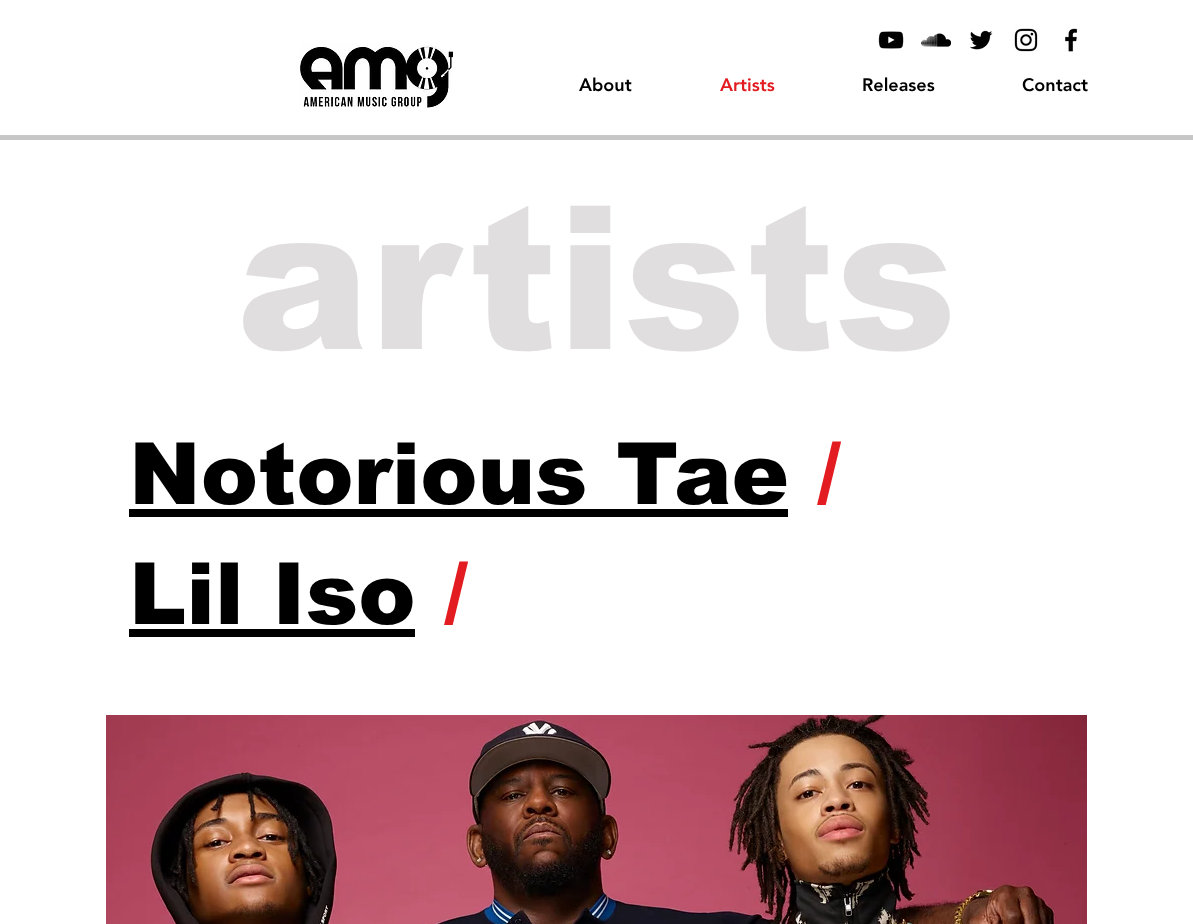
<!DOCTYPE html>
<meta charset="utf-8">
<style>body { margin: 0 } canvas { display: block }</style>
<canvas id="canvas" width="1193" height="924"></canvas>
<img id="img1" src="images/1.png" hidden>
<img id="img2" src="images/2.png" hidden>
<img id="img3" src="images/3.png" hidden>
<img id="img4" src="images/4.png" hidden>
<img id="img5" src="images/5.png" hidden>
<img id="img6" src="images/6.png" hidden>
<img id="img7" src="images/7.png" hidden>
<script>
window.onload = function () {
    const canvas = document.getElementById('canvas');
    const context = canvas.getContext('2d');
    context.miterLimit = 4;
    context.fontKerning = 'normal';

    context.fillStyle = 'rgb(255, 255, 255)';
    context.fillRect(0, 0, 1193, 924);
    context.drawImage(document.getElementById('img1'), 300, 44, 153, 65);
    context.drawImage(document.getElementById('img2'), 878, 31, 26, 18);
    context.drawImage(document.getElementById('img3'), 921, 33, 30, 14);
    context.drawImage(document.getElementById('img4'), 970, 30, 23, 20);
    context.drawImage(document.getElementById('img5'), 1014, 28, 24, 24);
    context.drawImage(document.getElementById('img6'), 1065, 28, 13, 24);
    context.fillStyle = 'rgb(199, 199, 199)';
    context.fillRect(0, 135, 1193, 5);
    context.fillStyle = 'rgb(0, 0, 0)';
    context.fillRect(129, 509, 659, 8);
    context.fillRect(129, 629, 286, 8);
    context.drawImage(document.getElementById('img7'), 106, 715, 981, 209);
    context.font = '900 18px "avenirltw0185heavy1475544"';
    context.fillText('About', 579, 91);
    context.fillStyle = 'rgb(226, 28, 33)';
    context.fillText('Artists', 720, 91);
    context.fillStyle = 'rgb(0, 0, 0)';
    context.fillText('Releases', 862, 91);
    context.fillText('Contact', 1022, 91);
    context.font = '900 200px arial';
    context.fillStyle = 'rgb(224, 222, 222)';
    context.fillText('artists', 236, 349);
    context.font = '900 86px arial';
    context.fillStyle = 'rgb(0, 0, 0)';
    context.fillText('Notorious Tae', 129, 504);
    context.fillStyle = 'rgb(226, 28, 33)';
    context.fillText('/', 817, 504);
    context.fillStyle = 'rgb(0, 0, 0)';
    context.fillText('Lil Iso', 129, 624);
    context.fillStyle = 'rgb(226, 28, 33)';
    context.fillText('/', 444, 624);
};
</script>
